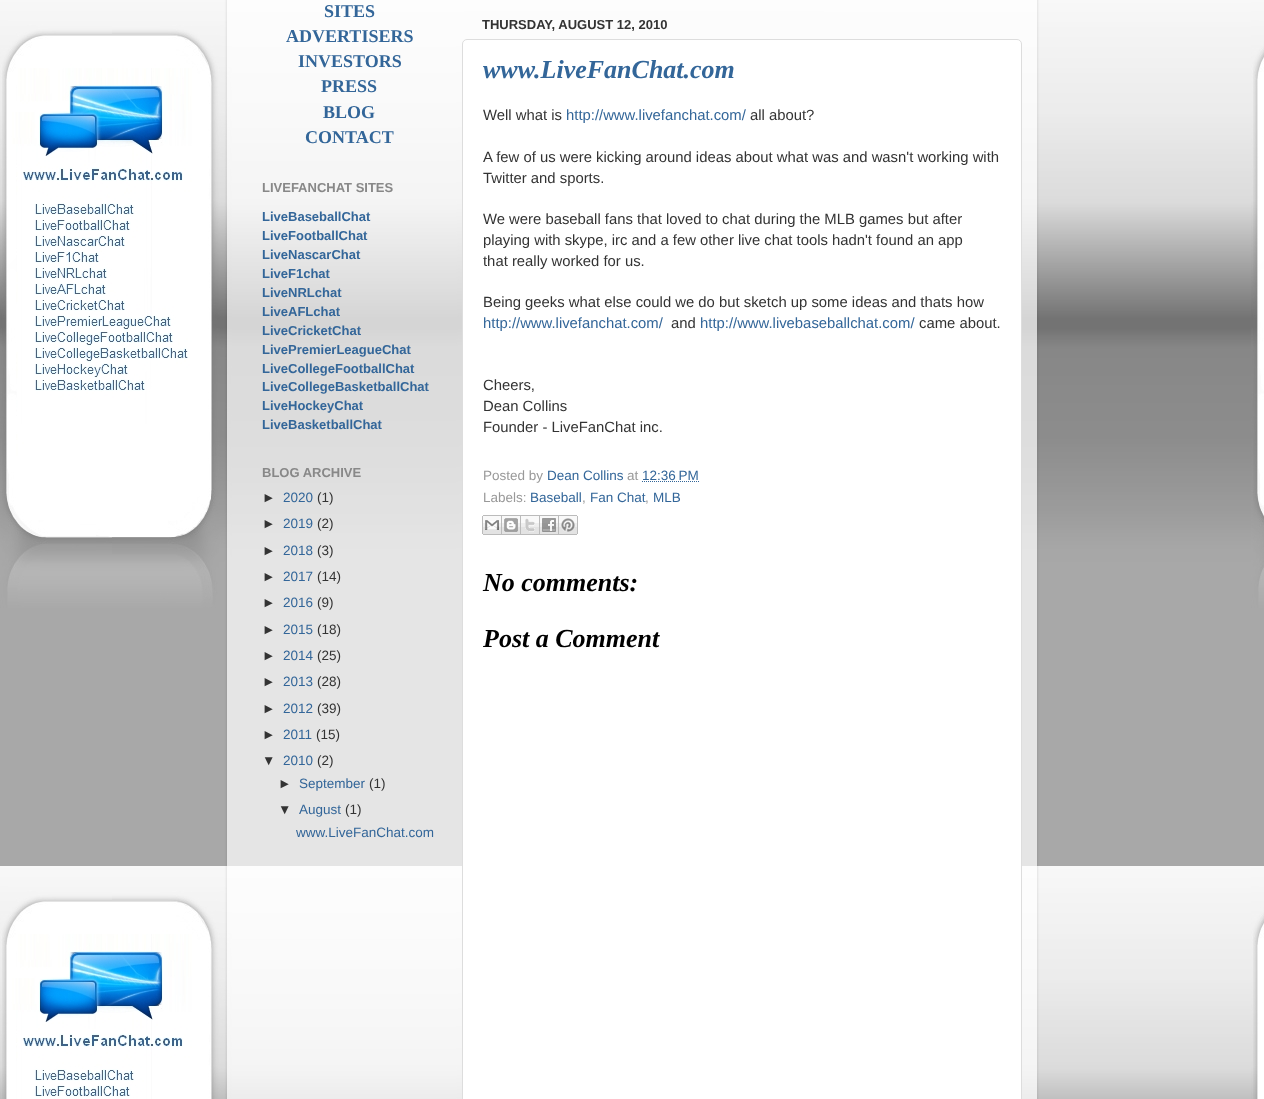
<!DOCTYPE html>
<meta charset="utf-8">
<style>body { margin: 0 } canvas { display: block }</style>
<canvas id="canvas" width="1264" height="1099"></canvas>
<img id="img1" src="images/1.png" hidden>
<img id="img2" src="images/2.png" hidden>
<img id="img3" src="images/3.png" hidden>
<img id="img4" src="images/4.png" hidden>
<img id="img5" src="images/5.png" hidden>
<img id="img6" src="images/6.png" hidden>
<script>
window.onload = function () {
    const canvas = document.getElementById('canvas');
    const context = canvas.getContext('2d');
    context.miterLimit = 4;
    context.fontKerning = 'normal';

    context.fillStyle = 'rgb(255, 255, 255)';
    context.fillRect(0, 0, 1264, 1099);
    context.drawImage(document.getElementById('img1'), 0, 0, 1264, 1099);
    context.save();
    context.beginPath();
    context.moveTo(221, 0);
    context.lineTo(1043, 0);
    context.lineTo(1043, 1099);
    context.lineTo(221, 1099);
    context.closePath();
    context.moveTo(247, -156);
    context.lineTo(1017, -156);
    context.bezierCurveTo(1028, -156, 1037, -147, 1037, -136);
    context.lineTo(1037, 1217);
    context.lineTo(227, 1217);
    context.lineTo(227, -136);
    context.bezierCurveTo(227, -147, 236, -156, 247, -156);
    context.closePath();
    context.clip('evenodd');
    context.fillStyle = 'rgba(0, 0, 0, 0.15)';
    context.filter = 'blur(1.5px)';
    context.beginPath();
    context.roundRect(227, -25, 810, 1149, 20);
    context.fill();
    context.filter = 'none';
    context.restore();
    context.fillStyle = 'rgba(255, 255, 255, 0.7)';
    context.fillRect(227, 0, 810, 1099);
    context.fillStyle = 'rgb(255, 255, 255)';
    context.beginPath();
    context.roundRect(462.5, 39.5, 559, 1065, 4.5);
    context.fill();
    context.strokeStyle = 'rgb(221, 221, 221)';
    context.stroke();
    context.beginPath();
    context.moveTo(642, 481.5);
    context.lineTo(699, 481.5);
    context.strokeStyle = 'rgb(51, 102, 153)';
    context.setLineDash([1, 1]);
    context.stroke();
    context.drawImage(document.getElementById('img2'), 482, 515, 20, 20);
    context.drawImage(document.getElementById('img3'), 502, 515, 19, 20);
    context.drawImage(document.getElementById('img4'), 521, 515, 19, 20);
    context.drawImage(document.getElementById('img5'), 540, 515, 19, 20);
    context.drawImage(document.getElementById('img6'), 559, 515, 19, 20);
    context.font = 'bold 18px Liberation Serif';
    context.fillStyle = 'rgb(51, 102, 153)';
    context.fillText('SITES', 324, 17);
    context.fillText('ADVERTISERS', 286, 42);
    context.fillText('INVESTORS', 298, 67);
    context.fillText('PRESS', 321, 92);
    context.fillText('BLOG', 323, 118);
    context.fillText('CONTACT', 305, 143);
    context.font = 'bold 13px Liberation Sans';
    context.fillStyle = 'rgb(136, 136, 136)';
    context.fillText('LIVEFANCHAT SITES', 262, 192);
    context.fillStyle = 'rgb(51, 102, 153)';
    context.fillText('LiveBaseballChat', 262, 221);
    context.fillText('LiveFootballChat', 262, 240);
    context.fillText('LiveNascarChat', 262, 259);
    context.fillText('LiveF1chat', 262, 278);
    context.fillText('LiveNRLchat', 262, 297);
    context.fillText('LiveAFLchat', 262, 316);
    context.fillText('LiveCricketChat', 262, 335);
    context.fillText('LivePremierLeagueChat', 262, 354);
    context.fillText('LiveCollegeFootballChat', 262, 373);
    context.fillText('LiveCollegeBasketballChat', 262, 391);
    context.fillText('LiveHockeyChat', 262, 410);
    context.fillText('LiveBasketballChat', 262, 429);
    context.fillStyle = 'rgb(136, 136, 136)';
    context.fillText('BLOG ARCHIVE', 262, 477);
    context.font = '13.5px Liberation Sans';
    context.fillStyle = 'rgb(51, 51, 51)';
    context.fillText('►', 262, 502);
    context.fillStyle = 'rgb(51, 102, 153)';
    context.fillText('2020', 283, 502);
    context.fillStyle = 'rgb(51, 51, 51)';
    context.fillText('(1)', 317, 502);
    context.fillText('►', 262, 528);
    context.fillStyle = 'rgb(51, 102, 153)';
    context.fillText('2019', 283, 528);
    context.fillStyle = 'rgb(51, 51, 51)';
    context.fillText('(2)', 317, 528);
    context.fillText('►', 262, 555);
    context.fillStyle = 'rgb(51, 102, 153)';
    context.fillText('2018', 283, 555);
    context.fillStyle = 'rgb(51, 51, 51)';
    context.fillText('(3)', 317, 555);
    context.fillText('►', 262, 581);
    context.fillStyle = 'rgb(51, 102, 153)';
    context.fillText('2017', 283, 581);
    context.fillStyle = 'rgb(51, 51, 51)';
    context.fillText('(14)', 317, 581);
    context.fillText('►', 262, 607);
    context.fillStyle = 'rgb(51, 102, 153)';
    context.fillText('2016', 283, 607);
    context.fillStyle = 'rgb(51, 51, 51)';
    context.fillText('(9)', 317, 607);
    context.fillText('►', 262, 634);
    context.fillStyle = 'rgb(51, 102, 153)';
    context.fillText('2015', 283, 634);
    context.fillStyle = 'rgb(51, 51, 51)';
    context.fillText('(18)', 317, 634);
    context.fillText('►', 262, 660);
    context.fillStyle = 'rgb(51, 102, 153)';
    context.fillText('2014', 283, 660);
    context.fillStyle = 'rgb(51, 51, 51)';
    context.fillText('(25)', 317, 660);
    context.fillText('►', 262, 686);
    context.fillStyle = 'rgb(51, 102, 153)';
    context.fillText('2013', 283, 686);
    context.fillStyle = 'rgb(51, 51, 51)';
    context.fillText('(28)', 317, 686);
    context.fillText('►', 262, 713);
    context.fillStyle = 'rgb(51, 102, 153)';
    context.fillText('2012', 283, 713);
    context.fillStyle = 'rgb(51, 51, 51)';
    context.fillText('(39)', 317, 713);
    context.fillText('►', 262, 739);
    context.fillStyle = 'rgb(51, 102, 153)';
    context.fillText('2011', 283, 739);
    context.fillStyle = 'rgb(51, 51, 51)';
    context.fillText('(15)', 316, 739);
    context.fillText('▼', 262, 765);
    context.fillStyle = 'rgb(51, 102, 153)';
    context.fillText('2010', 283, 765);
    context.fillStyle = 'rgb(51, 51, 51)';
    context.fillText('(2)', 317, 765);
    context.fillText('►', 278, 788);
    context.fillStyle = 'rgb(51, 102, 153)';
    context.fillText('September', 299, 788);
    context.fillStyle = 'rgb(51, 51, 51)';
    context.fillText('(1)', 369, 788);
    context.fillText('▼', 278, 814);
    context.fillStyle = 'rgb(51, 102, 153)';
    context.fillText('August', 299, 814);
    context.fillStyle = 'rgb(51, 51, 51)';
    context.fillText('(1)', 345, 814);
    context.fillStyle = 'rgb(51, 102, 153)';
    context.fillText('www.LiveFanChat.com', 296, 837);
    context.font = 'bold 13px Liberation Sans';
    context.fillStyle = 'rgb(51, 51, 51)';
    context.fillText('THURSDAY, AUGUST 12, 2010', 482, 29);
    context.font = 'italic bold 26px Liberation Serif';
    context.fillStyle = 'rgb(51, 102, 153)';
    context.fillText('www.LiveFanChat.com', 483, 78);
    context.font = '14.85px Liberation Sans';
    context.fillStyle = 'rgb(51, 51, 51)';
    context.fillText('Well what is', 483, 120);
    context.fillStyle = 'rgb(51, 102, 153)';
    context.fillText('http://www.livefanchat.com/', 566, 120);
    context.fillStyle = 'rgb(51, 51, 51)';
    context.fillText('all about?', 750, 120);
    context.fillText('A few of us were kicking around ideas about what was and wasn\'t working with', 483, 162);
    context.fillText('Twitter and sports.', 483, 183);
    context.fillText('We were baseball fans that loved to chat during the MLB games but after', 483, 224);
    context.fillText('playing with skype, irc and a few other live chat tools hadn\'t found an app', 483, 245);
    context.fillText('that really worked for us.', 483, 266);
    context.fillText('Being geeks what else could we do but sketch up some ideas and thats how', 483, 307);
    context.fillStyle = 'rgb(51, 102, 153)';
    context.fillText('http://www.livefanchat.com/', 483, 328);
    context.fillStyle = 'rgb(51, 51, 51)';
    context.fillText('and', 671, 328);
    context.fillStyle = 'rgb(51, 102, 153)';
    context.fillText('http://www.livebaseballchat.com/', 700, 328);
    context.fillStyle = 'rgb(51, 51, 51)';
    context.fillText('came about.', 919, 328);
    context.fillText('Cheers,', 483, 390);
    context.fillText('Dean Collins', 483, 411);
    context.fillText('Founder - LiveFanChat inc.', 483, 432);
    context.font = '13.5px Liberation Sans';
    context.fillStyle = 'rgb(153, 153, 153)';
    context.fillText('Posted by', 483, 480);
    context.fillStyle = 'rgb(51, 102, 153)';
    context.fillText('Dean Collins', 547, 480);
    context.fillStyle = 'rgb(153, 153, 153)';
    context.fillText('at', 627, 480);
    context.fillStyle = 'rgb(51, 102, 153)';
    context.fillText('12:36 PM', 642, 480);
    context.fillStyle = 'rgb(153, 153, 153)';
    context.fillText('Labels:', 483, 502);
    context.fillStyle = 'rgb(51, 102, 153)';
    context.fillText('Baseball', 530, 502);
    context.fillStyle = 'rgb(153, 153, 153)';
    context.fillText(',', 582, 502);
    context.fillStyle = 'rgb(51, 102, 153)';
    context.fillText('Fan Chat', 590, 502);
    context.fillStyle = 'rgb(153, 153, 153)';
    context.fillText(',', 645, 502);
    context.fillStyle = 'rgb(51, 102, 153)';
    context.fillText('MLB', 653, 502);
    context.font = 'italic bold 26px Liberation Serif';
    context.fillStyle = 'rgb(0, 0, 0)';
    context.fillText('No comments:', 483, 591);
    context.fillText('Post a Comment', 483, 647);
};
</script>
